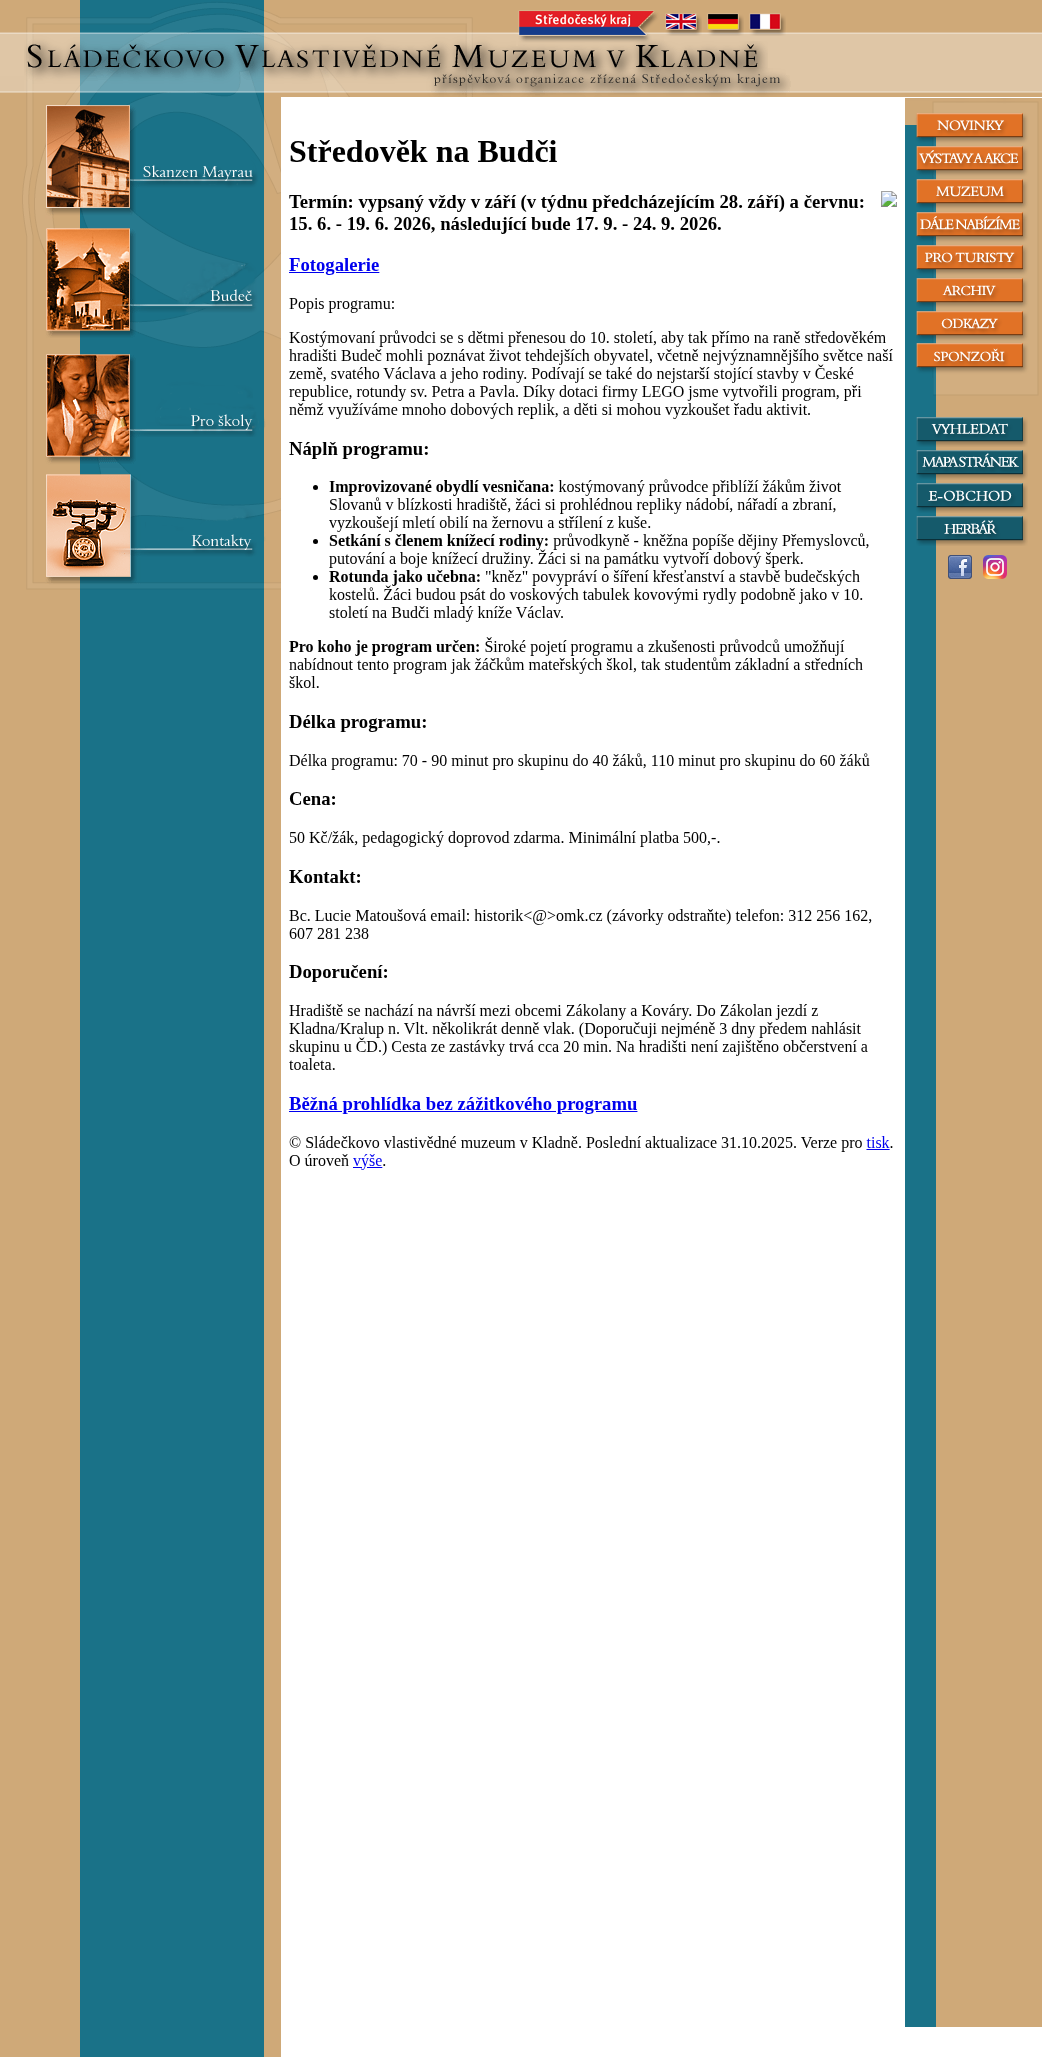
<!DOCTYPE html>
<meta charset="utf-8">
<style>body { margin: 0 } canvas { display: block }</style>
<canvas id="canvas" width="1042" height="2057"></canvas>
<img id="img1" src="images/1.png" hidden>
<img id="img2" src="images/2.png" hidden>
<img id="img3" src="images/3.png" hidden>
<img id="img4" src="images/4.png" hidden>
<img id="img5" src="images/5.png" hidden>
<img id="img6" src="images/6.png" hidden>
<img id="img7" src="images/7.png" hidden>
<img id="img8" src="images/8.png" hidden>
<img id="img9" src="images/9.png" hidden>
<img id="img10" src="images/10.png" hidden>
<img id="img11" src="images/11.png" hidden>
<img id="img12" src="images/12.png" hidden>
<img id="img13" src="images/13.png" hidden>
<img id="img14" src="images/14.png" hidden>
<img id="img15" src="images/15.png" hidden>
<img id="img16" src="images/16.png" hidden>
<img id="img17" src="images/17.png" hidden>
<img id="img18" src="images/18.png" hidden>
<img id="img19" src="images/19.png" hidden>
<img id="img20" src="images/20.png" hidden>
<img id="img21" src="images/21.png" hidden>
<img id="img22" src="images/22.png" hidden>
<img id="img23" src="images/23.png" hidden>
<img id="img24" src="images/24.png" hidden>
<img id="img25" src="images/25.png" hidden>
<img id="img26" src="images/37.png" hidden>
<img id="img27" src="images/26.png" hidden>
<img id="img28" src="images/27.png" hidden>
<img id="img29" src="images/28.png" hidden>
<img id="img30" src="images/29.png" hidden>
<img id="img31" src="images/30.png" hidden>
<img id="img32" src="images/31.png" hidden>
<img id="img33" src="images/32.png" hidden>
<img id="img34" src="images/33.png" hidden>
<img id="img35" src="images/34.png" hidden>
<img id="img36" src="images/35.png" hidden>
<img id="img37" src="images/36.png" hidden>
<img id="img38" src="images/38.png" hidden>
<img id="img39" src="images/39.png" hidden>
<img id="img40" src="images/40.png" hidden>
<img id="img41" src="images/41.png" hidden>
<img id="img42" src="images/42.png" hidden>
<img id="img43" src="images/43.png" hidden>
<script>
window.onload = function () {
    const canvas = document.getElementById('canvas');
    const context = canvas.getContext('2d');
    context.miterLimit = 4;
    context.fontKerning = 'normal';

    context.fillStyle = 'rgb(255, 255, 255)';
    context.fillRect(0, 0, 1042, 2057);
    context.drawImage(document.getElementById('img1'), 0, 0, 1042, 97);
    context.drawImage(document.getElementById('img2'), 80, 0, 184, 8);
    context.drawImage(document.getElementById('img3'), 24, 8, 492, 89);
    context.drawImage(document.getElementById('img4'), 518, 10, 146, 36);
    context.drawImage(document.getElementById('img5'), 665, 13, 37, 23);
    context.drawImage(document.getElementById('img6'), 707, 13, 37, 23);
    context.drawImage(document.getElementById('img7'), 749, 13, 37, 23);
    context.drawImage(document.getElementById('img8'), 516, 46, 148, 22);
    context.drawImage(document.getElementById('img9'), 664, 41, 104, 27);
    context.drawImage(document.getElementById('img10'), 516, 68, 121, 29);
    context.drawImage(document.getElementById('img11'), 637, 68, 149, 29);
    context.drawImage(document.getElementById('img12'), 786, 75, 4, 18);
    context.fillStyle = 'rgb(217, 193, 161)';
    context.fillRect(790, 81, 1, 6);
    context.drawImage(document.getElementById('img13'), 0, 97, 281, 1960);
    context.drawImage(document.getElementById('img14'), 26, 97, 234, 8);
    context.drawImage(document.getElementById('img15'), 22, 105, 23, 485);
    context.drawImage(document.getElementById('img16'), 45, 105, 95, 114);
    context.drawImage(document.getElementById('img17'), 140, 105, 141, 332);
    context.drawImage(document.getElementById('img18'), 45, 219, 95, 9);
    context.drawImage(document.getElementById('img19'), 45, 228, 95, 110);
    context.drawImage(document.getElementById('img20'), 45, 354, 95, 114);
    context.drawImage(document.getElementById('img21'), 99, 468, 32, 6);
    context.drawImage(document.getElementById('img22'), 45, 474, 96, 114);
    context.drawImage(document.getElementById('img23'), 141, 481, 140, 109);
    context.drawImage(document.getElementById('img24'), 45, 588, 96, 2);
    context.drawImage(document.getElementById('img25'), 905, 98, 137, 14);
    context.fillStyle = 'rgb(207, 169, 120)';
    context.fillRect(905, 112, 9, 13);
    context.drawImage(document.getElementById('img26'), 905, 125, 137, 1902);
    context.drawImage(document.getElementById('img27'), 914, 112, 118, 33);
    context.drawImage(document.getElementById('img28'), 1032, 112, 10, 284);
    context.drawImage(document.getElementById('img29'), 916, 145, 116, 33);
    context.drawImage(document.getElementById('img30'), 916, 178, 116, 33);
    context.drawImage(document.getElementById('img31'), 916, 211, 116, 33);
    context.drawImage(document.getElementById('img32'), 916, 244, 116, 33);
    context.drawImage(document.getElementById('img33'), 916, 277, 116, 33);
    context.drawImage(document.getElementById('img34'), 916, 310, 116, 32);
    context.drawImage(document.getElementById('img35'), 916, 342, 116, 36);
    context.drawImage(document.getElementById('img36'), 933, 378, 99, 18);
    context.drawImage(document.getElementById('img37'), 289, 140, 608, 1030);
    context.drawImage(document.getElementById('img38'), 916, 417, 112, 30);
    context.drawImage(document.getElementById('img39'), 916, 450, 112, 30);
    context.drawImage(document.getElementById('img40'), 916, 483, 112, 30);
    context.drawImage(document.getElementById('img41'), 916, 516, 112, 30);
    context.drawImage(document.getElementById('img42'), 948, 555, 24, 24);
    context.drawImage(document.getElementById('img43'), 983, 555, 24, 24);
};
</script>
